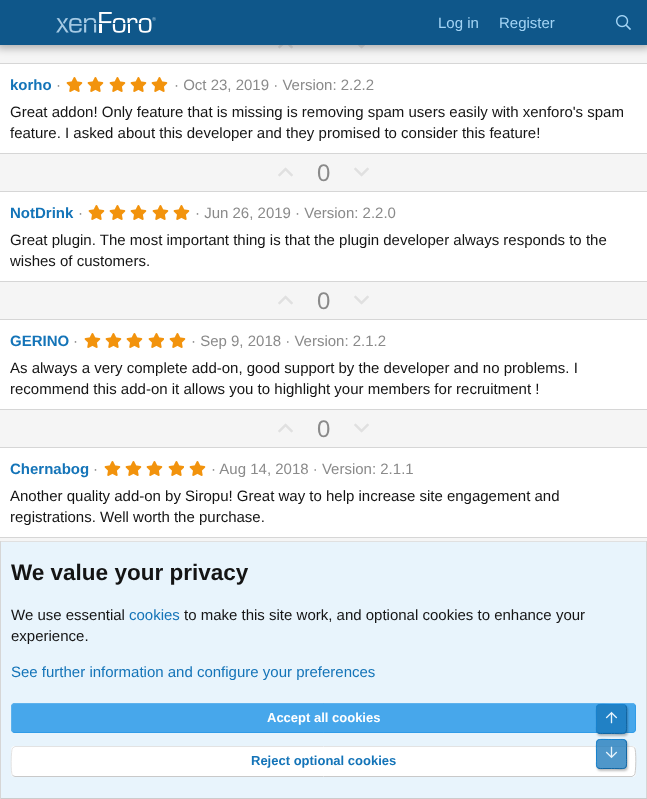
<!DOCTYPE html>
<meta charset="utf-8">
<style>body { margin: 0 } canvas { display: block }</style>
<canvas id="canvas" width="647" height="799"></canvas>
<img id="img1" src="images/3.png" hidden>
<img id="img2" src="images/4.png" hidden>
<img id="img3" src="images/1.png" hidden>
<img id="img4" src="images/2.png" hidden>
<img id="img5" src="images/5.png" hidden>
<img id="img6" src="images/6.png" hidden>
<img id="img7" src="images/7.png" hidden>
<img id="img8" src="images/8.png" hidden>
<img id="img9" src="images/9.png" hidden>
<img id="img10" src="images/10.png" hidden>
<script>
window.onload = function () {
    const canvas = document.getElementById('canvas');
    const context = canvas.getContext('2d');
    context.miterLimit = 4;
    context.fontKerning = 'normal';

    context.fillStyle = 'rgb(255, 255, 255)';
    context.fillRect(0, 0, 647, 799);
    context.fillStyle = 'rgb(245, 245, 245)';
    context.fillRect(0, 45, 647, 18);
    context.drawImage(document.getElementById('img1'), 278, 45, 15, 4);
    context.drawImage(document.getElementById('img2'), 358, 45, 7, 4);
    context.fillStyle = 'rgba(0, 0, 0, 0.3)';
    context.filter = 'blur(4px)';
    context.beginPath();
    context.rect(-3, -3, 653, 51);
    context.fill();
    context.filter = 'none';
    context.fillStyle = 'rgb(15, 87, 138)';
    context.fillRect(0, 0, 647, 45);
    context.drawImage(document.getElementById('img3'), 56, 12, 100, 21);
    context.drawImage(document.getElementById('img4'), 616, 15, 15, 15);
    context.fillStyle = 'rgb(214, 214, 214)';
    context.fillRect(0, 63, 647, 1);
    context.drawImage(document.getElementById('img5'), 66, 77, 17, 15);
    context.drawImage(document.getElementById('img5'), 87, 77, 17, 15);
    context.drawImage(document.getElementById('img5'), 109, 77, 17, 15);
    context.drawImage(document.getElementById('img5'), 130, 77, 17, 15);
    context.drawImage(document.getElementById('img5'), 151, 77, 17, 15);
    context.fillStyle = 'rgb(245, 245, 245)';
    context.fillRect(0, 154, 647, 37);
    context.fillStyle = 'rgb(214, 214, 214)';
    context.fillRect(0, 153, 647, 1);
    context.drawImage(document.getElementById('img6'), 278, 167, 15, 10);
    context.drawImage(document.getElementById('img7'), 354, 167, 15, 10);
    context.fillRect(0, 191, 647, 1);
    context.drawImage(document.getElementById('img5'), 88, 205, 17, 15);
    context.drawImage(document.getElementById('img5'), 109, 205, 17, 15);
    context.drawImage(document.getElementById('img5'), 130, 205, 17, 15);
    context.drawImage(document.getElementById('img5'), 152, 205, 17, 15);
    context.drawImage(document.getElementById('img5'), 173, 205, 17, 15);
    context.fillStyle = 'rgb(245, 245, 245)';
    context.fillRect(0, 282, 647, 37);
    context.fillStyle = 'rgb(214, 214, 214)';
    context.fillRect(0, 281, 647, 1);
    context.drawImage(document.getElementById('img6'), 278, 295, 15, 10);
    context.drawImage(document.getElementById('img7'), 354, 295, 15, 10);
    context.fillRect(0, 319, 647, 1);
    context.drawImage(document.getElementById('img5'), 84, 333, 17, 15);
    context.drawImage(document.getElementById('img5'), 105, 333, 17, 15);
    context.drawImage(document.getElementById('img5'), 126, 333, 17, 15);
    context.drawImage(document.getElementById('img8'), 148, 333, 16, 15);
    context.drawImage(document.getElementById('img5'), 169, 333, 17, 15);
    context.fillStyle = 'rgb(245, 245, 245)';
    context.fillRect(0, 410, 647, 37);
    context.fillStyle = 'rgb(214, 214, 214)';
    context.fillRect(0, 409, 647, 1);
    context.drawImage(document.getElementById('img6'), 278, 423, 15, 10);
    context.drawImage(document.getElementById('img7'), 354, 423, 15, 10);
    context.fillRect(0, 447, 647, 1);
    context.drawImage(document.getElementById('img5'), 104, 461, 17, 15);
    context.drawImage(document.getElementById('img5'), 125, 461, 17, 15);
    context.drawImage(document.getElementById('img5'), 146, 461, 17, 15);
    context.drawImage(document.getElementById('img8'), 168, 461, 16, 15);
    context.drawImage(document.getElementById('img5'), 189, 461, 17, 15);
    context.fillStyle = 'rgb(245, 245, 245)';
    context.fillRect(0, 538, 647, 3);
    context.fillStyle = 'rgb(214, 214, 214)';
    context.fillRect(0, 537, 647, 1);
    context.fillStyle = 'rgb(232, 244, 252)';
    context.fillRect(1, 542, 645, 256);
    context.fillStyle = 'rgb(224, 224, 224)';
    context.fillRect(0, 541, 647, 1);
    context.fillStyle = 'rgb(214, 214, 214)';
    context.fillRect(646, 541, 1, 258);
    context.fillStyle = 'rgb(204, 204, 204)';
    context.fillRect(0, 798, 647, 1);
    context.fillStyle = 'rgb(214, 214, 214)';
    context.fillRect(0, 541, 1, 258);
    context.fillStyle = 'rgb(71, 167, 235)';
    context.beginPath();
    context.roundRect(11, 703, 625, 30, 4);
    context.fill();
    context.beginPath();
    context.moveTo(634.5, 704.5);
    context.bezierCurveTo(635, 705, 635.5, 706, 635.5, 707);
    context.lineTo(635.5, 729);
    context.bezierCurveTo(635.5, 730, 635, 731, 634.5, 731.5);
    context.bezierCurveTo(634, 732, 633, 732.5, 632, 732.5);
    context.lineTo(15, 732.5);
    context.bezierCurveTo(14, 732.5, 13, 732, 12.5, 731.5);
    context.strokeStyle = 'rgb(48, 156, 232)';
    context.stroke();
    context.beginPath();
    context.moveTo(12.5, 731.5);
    context.bezierCurveTo(12, 731, 11.5, 730, 11.5, 729);
    context.lineTo(11.5, 707);
    context.bezierCurveTo(11.5, 706, 12, 705, 12.5, 704.5);
    context.bezierCurveTo(13, 704, 14, 703.5, 15, 703.5);
    context.lineTo(632, 703.5);
    context.bezierCurveTo(633, 703.5, 634, 704, 634.5, 704.5);
    context.strokeStyle = 'rgb(94, 178, 237)';
    context.stroke();
    context.fillStyle = 'rgb(255, 255, 255)';
    context.beginPath();
    context.roundRect(11, 746, 625, 31, 4);
    context.fill();
    context.beginPath();
    context.moveTo(634.5, 747.5);
    context.bezierCurveTo(636.5, 749.5, 636, 773.5, 634.5, 775);
    context.lineTo(632, 776.5);
    context.lineTo(15, 776.5);
    context.lineTo(12.5, 775.5);
    context.strokeStyle = 'rgb(201, 201, 201)';
    context.stroke();
    context.beginPath();
    context.moveTo(12.5, 775.5);
    context.bezierCurveTo(10.5, 773.5, 11, 749.5, 12.5, 748);
    context.lineTo(15, 746.5);
    context.lineTo(632, 746.5);
    context.lineTo(634.5, 747.5);
    context.strokeStyle = 'rgb(227, 227, 227)';
    context.stroke();
    context.save();
    context.beginPath();
    context.moveTo(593, 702);
    context.lineTo(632, 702);
    context.lineTo(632, 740);
    context.lineTo(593, 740);
    context.closePath();
    context.moveTo(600, 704);
    context.lineTo(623, 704);
    context.bezierCurveTo(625, 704, 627, 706, 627, 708);
    context.lineTo(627, 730);
    context.bezierCurveTo(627, 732, 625, 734, 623, 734);
    context.lineTo(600, 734);
    context.bezierCurveTo(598, 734, 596, 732, 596, 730);
    context.lineTo(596, 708);
    context.bezierCurveTo(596, 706, 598, 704, 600, 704);
    context.closePath();
    context.clip('evenodd');
    context.fillStyle = 'rgba(0, 0, 0, 0.25)';
    context.filter = 'blur(1px)';
    context.beginPath();
    context.roundRect(597, 706, 31, 30, 4);
    context.fill();
    context.filter = 'none';
    context.restore();
    context.fillStyle = 'rgba(20, 116, 184, 0.75)';
    context.beginPath();
    context.roundRect(596, 704, 31, 30, 4);
    context.fill();
    context.beginPath();
    context.moveTo(625.5, 705.5);
    context.bezierCurveTo(627, 707, 626.5, 710, 626.5, 711.5);
    context.lineTo(626.5, 719);
    context.bezierCurveTo(626.5, 736, 628.5, 733.5, 611.5, 733.5);
    context.lineTo(604, 733.5);
    context.bezierCurveTo(602, 733.5, 599, 734, 597.5, 732.5);
    context.strokeStyle = 'rgb(18, 101, 161)';
    context.stroke();
    context.beginPath();
    context.moveTo(597.5, 732.5);
    context.bezierCurveTo(596, 731, 596.5, 728, 596.5, 726.5);
    context.lineTo(596.5, 719);
    context.bezierCurveTo(596.5, 702, 594.5, 704.5, 611.5, 704.5);
    context.lineTo(619, 704.5);
    context.bezierCurveTo(621, 704.5, 624, 704, 625.5, 705.5);
    context.strokeStyle = 'rgb(23, 130, 207)';
    context.stroke();
    context.drawImage(document.getElementById('img9'), 605, 711, 13, 13);
    context.save();
    context.beginPath();
    context.moveTo(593, 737);
    context.lineTo(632, 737);
    context.lineTo(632, 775);
    context.lineTo(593, 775);
    context.closePath();
    context.moveTo(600, 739);
    context.lineTo(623, 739);
    context.bezierCurveTo(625, 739, 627, 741, 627, 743);
    context.lineTo(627, 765);
    context.bezierCurveTo(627, 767, 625, 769, 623, 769);
    context.lineTo(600, 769);
    context.bezierCurveTo(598, 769, 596, 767, 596, 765);
    context.lineTo(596, 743);
    context.bezierCurveTo(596, 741, 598, 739, 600, 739);
    context.closePath();
    context.clip('evenodd');
    context.fillStyle = 'rgba(0, 0, 0, 0.25)';
    context.filter = 'blur(1px)';
    context.beginPath();
    context.roundRect(597, 741, 31, 30, 4);
    context.fill();
    context.filter = 'none';
    context.restore();
    context.beginPath();
    context.roundRect(596, 739, 31, 30, 4);
    context.fill();
    context.beginPath();
    context.moveTo(625.5, 740.5);
    context.bezierCurveTo(627, 742, 626.5, 745, 626.5, 746.5);
    context.lineTo(626.5, 754);
    context.bezierCurveTo(626.5, 771, 628.5, 768.5, 611.5, 768.5);
    context.lineTo(604, 768.5);
    context.bezierCurveTo(602, 768.5, 599, 769, 597.5, 767.5);
    context.strokeStyle = 'rgb(18, 101, 161)';
    context.stroke();
    context.beginPath();
    context.moveTo(597.5, 767.5);
    context.bezierCurveTo(596, 766, 596.5, 763, 596.5, 761.5);
    context.lineTo(596.5, 754);
    context.bezierCurveTo(596.5, 737, 594.5, 739.5, 611.5, 739.5);
    context.lineTo(619, 739.5);
    context.bezierCurveTo(621, 739.5, 624, 739, 625.5, 740.5);
    context.strokeStyle = 'rgb(23, 130, 207)';
    context.stroke();
    context.drawImage(document.getElementById('img10'), 605, 746, 13, 13);
    context.font = '15px Liberation Sans';
    context.fillStyle = 'rgb(163, 212, 245)';
    context.fillText('Log in', 438, 28);
    context.fillText('Register', 499, 28);
    context.font = 'bold 15px Liberation Sans';
    context.fillStyle = 'rgb(20, 116, 184)';
    context.fillText('korho', 10, 90);
    context.font = '15px Liberation Sans';
    context.fillStyle = 'rgb(138, 138, 138)';
    context.fillText('·', 56, 90);
    context.fillText('· Oct 23, 2019 · Version: 2.2.2', 174, 90);
    context.fillStyle = 'rgb(20, 20, 20)';
    context.fillText('Great addon! Only feature that is missing is removing spam users easily with xenforo\'s spam', 10, 117);
    context.fillText('feature. I asked about this developer and they promised to consider this feature!', 10, 138);
    context.font = '24px Liberation Sans';
    context.fillStyle = 'rgb(138, 138, 138)';
    context.fillText('0', 317, 181);
    context.font = 'bold 15px Liberation Sans';
    context.fillStyle = 'rgb(20, 116, 184)';
    context.fillText('NotDrink', 10, 218);
    context.font = '15px Liberation Sans';
    context.fillStyle = 'rgb(138, 138, 138)';
    context.fillText('·', 78, 218);
    context.fillText('· Jun 26, 2019 · Version: 2.2.0', 195, 218);
    context.fillStyle = 'rgb(20, 20, 20)';
    context.fillText('Great plugin. The most important thing is that the plugin developer always responds to the', 10, 245);
    context.fillText('wishes of customers.', 10, 266);
    context.font = '24px Liberation Sans';
    context.fillStyle = 'rgb(138, 138, 138)';
    context.fillText('0', 317, 309);
    context.font = 'bold 15px Liberation Sans';
    context.fillStyle = 'rgb(20, 116, 184)';
    context.fillText('GERINO', 10, 346);
    context.font = '15px Liberation Sans';
    context.fillStyle = 'rgb(138, 138, 138)';
    context.fillText('·', 73, 346);
    context.fillText('· Sep 9, 2018 · Version: 2.1.2', 191, 346);
    context.fillStyle = 'rgb(20, 20, 20)';
    context.fillText('As always a very complete add-on, good support by the developer and no problems. I', 10, 373);
    context.fillText('recommend this add-on it allows you to highlight your members for recruitment !', 10, 394);
    context.font = '24px Liberation Sans';
    context.fillStyle = 'rgb(138, 138, 138)';
    context.fillText('0', 317, 437);
    context.font = 'bold 15px Liberation Sans';
    context.fillStyle = 'rgb(20, 116, 184)';
    context.fillText('Chernabog', 10, 474);
    context.font = '15px Liberation Sans';
    context.fillStyle = 'rgb(138, 138, 138)';
    context.fillText('·', 93, 474);
    context.fillText('· Aug 14, 2018 · Version: 2.1.1', 211, 474);
    context.fillStyle = 'rgb(20, 20, 20)';
    context.fillText('Another quality add-on by Siropu! Great way to help increase site engagement and', 10, 501);
    context.fillText('registrations. Well worth the purchase.', 10, 522);
    context.font = 'bold 22.5px Liberation Sans';
    context.fillText('We value your privacy', 11, 580);
    context.font = '15px Liberation Sans';
    context.fillText('We use essential', 11, 620);
    context.fillStyle = 'rgb(20, 116, 184)';
    context.fillText('cookies', 129, 620);
    context.fillStyle = 'rgb(20, 20, 20)';
    context.fillText('to make this site work, and optional cookies to enhance your', 184, 620);
    context.fillText('experience.', 11, 641);
    context.fillStyle = 'rgb(20, 116, 184)';
    context.fillText('See further information and configure your preferences', 11, 677);
    context.font = 'bold 13px Liberation Sans';
    context.fillStyle = 'rgb(255, 255, 255)';
    context.fillText('Accept all cookies', 267, 722);
    context.fillStyle = 'rgb(20, 116, 184)';
    context.fillText('Reject optional cookies', 251, 765);
};
</script>
